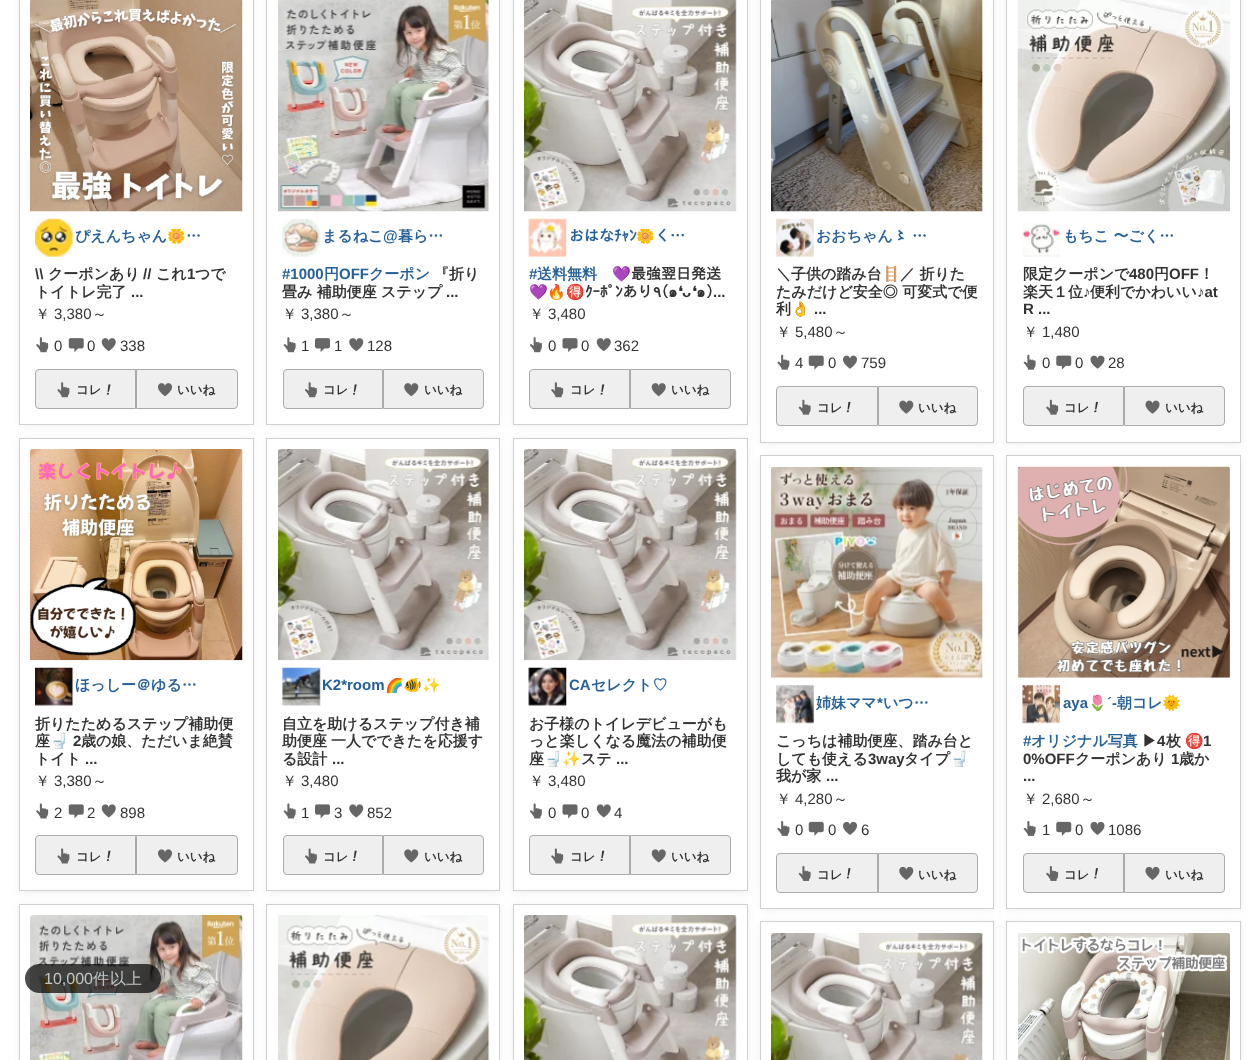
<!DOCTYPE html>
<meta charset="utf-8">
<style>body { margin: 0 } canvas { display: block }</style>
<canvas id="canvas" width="1259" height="1060"></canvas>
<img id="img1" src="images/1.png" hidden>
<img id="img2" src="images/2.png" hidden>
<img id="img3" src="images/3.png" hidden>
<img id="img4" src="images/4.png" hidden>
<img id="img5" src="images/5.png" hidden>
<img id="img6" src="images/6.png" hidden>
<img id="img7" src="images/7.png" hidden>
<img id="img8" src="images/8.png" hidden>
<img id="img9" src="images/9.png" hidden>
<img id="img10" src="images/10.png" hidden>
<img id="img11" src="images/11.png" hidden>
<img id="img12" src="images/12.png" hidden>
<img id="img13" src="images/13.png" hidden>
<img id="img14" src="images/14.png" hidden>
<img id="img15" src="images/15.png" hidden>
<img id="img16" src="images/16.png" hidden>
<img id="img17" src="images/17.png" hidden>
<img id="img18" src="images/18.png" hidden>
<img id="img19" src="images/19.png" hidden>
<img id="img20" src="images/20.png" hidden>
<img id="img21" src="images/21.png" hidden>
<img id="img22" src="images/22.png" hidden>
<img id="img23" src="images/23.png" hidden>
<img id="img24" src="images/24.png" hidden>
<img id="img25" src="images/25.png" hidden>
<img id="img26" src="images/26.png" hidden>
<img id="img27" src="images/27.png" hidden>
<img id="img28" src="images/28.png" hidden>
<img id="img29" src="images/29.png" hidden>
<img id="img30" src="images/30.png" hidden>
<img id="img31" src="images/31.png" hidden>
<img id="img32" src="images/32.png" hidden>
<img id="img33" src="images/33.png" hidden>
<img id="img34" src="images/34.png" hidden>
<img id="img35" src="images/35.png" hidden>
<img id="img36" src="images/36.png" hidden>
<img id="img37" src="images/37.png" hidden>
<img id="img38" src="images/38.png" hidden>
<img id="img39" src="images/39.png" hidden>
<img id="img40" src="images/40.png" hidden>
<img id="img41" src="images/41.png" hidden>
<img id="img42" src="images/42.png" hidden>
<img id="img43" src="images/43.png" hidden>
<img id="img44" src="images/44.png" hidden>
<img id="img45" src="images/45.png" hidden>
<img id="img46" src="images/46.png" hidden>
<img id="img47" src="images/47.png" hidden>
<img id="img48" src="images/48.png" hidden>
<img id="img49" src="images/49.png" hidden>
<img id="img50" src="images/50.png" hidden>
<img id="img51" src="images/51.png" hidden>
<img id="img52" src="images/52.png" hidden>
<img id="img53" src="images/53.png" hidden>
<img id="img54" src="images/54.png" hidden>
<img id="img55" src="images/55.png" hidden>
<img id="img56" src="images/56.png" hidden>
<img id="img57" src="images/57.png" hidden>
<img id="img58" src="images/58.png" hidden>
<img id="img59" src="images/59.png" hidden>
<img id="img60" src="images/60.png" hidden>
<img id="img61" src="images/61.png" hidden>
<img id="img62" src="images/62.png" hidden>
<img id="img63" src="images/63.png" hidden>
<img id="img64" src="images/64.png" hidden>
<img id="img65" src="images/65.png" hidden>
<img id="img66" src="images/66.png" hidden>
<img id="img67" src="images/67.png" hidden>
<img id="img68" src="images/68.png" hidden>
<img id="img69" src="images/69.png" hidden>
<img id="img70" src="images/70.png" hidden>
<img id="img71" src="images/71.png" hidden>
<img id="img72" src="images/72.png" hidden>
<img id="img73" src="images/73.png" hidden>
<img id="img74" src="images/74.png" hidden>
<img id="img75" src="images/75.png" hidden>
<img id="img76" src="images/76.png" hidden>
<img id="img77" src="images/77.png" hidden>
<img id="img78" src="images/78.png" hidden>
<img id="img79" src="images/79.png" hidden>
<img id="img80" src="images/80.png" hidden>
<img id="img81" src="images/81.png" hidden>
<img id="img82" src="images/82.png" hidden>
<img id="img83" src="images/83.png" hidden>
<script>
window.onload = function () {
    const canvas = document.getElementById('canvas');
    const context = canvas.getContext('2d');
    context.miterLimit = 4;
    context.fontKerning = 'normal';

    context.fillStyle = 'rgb(255, 255, 255)';
    context.fillRect(0, 0, 1259, 1060);
    context.fillStyle = 'rgb(239, 239, 239)';
    context.filter = 'blur(4px)';
    context.beginPath();
    context.roundRect(19, -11, 235, 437, 4);
    context.fill();
    context.filter = 'none';
    context.fillStyle = 'rgb(255, 255, 255)';
    context.beginPath();
    context.roundRect(19, -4, 235, 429, 4);
    context.fill();
    context.strokeStyle = 'rgb(207, 207, 207)';
    context.strokeRect(19.5, -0.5, 234, 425);
    context.drawImage(document.getElementById('img1'), 30, 0, 213, 212);
    context.drawImage(document.getElementById('img2'), 35, 218, 38, 39);
    context.drawImage(document.getElementById('img3'), 36, 337, 13, 16);
    context.drawImage(document.getElementById('img4'), 68, 338, 16, 14);
    context.drawImage(document.getElementById('img5'), 101, 338, 15, 14);
    context.fillStyle = 'rgb(239, 239, 239)';
    context.beginPath();
    context.roundRect(35.5, 369.5, 100, 39, [3.5, 0, 0, 3.5]);
    context.fill();
    context.strokeStyle = 'rgb(171, 171, 171)';
    context.stroke();
    context.drawImage(document.getElementById('img6'), 57, 382, 13, 16);
    context.drawImage(document.getElementById('img7'), 106, 384, 5, 11);
    context.beginPath();
    context.roundRect(136.5, 369.5, 101, 39, [0, 3.5, 3.5, 0]);
    context.fill();
    context.stroke();
    context.drawImage(document.getElementById('img8'), 158, 383, 14, 14);
    context.filter = 'blur(4px)';
    context.beginPath();
    context.roundRect(19, 439, 235, 454, 4);
    context.fill();
    context.filter = 'none';
    context.fillStyle = 'rgb(255, 255, 255)';
    context.beginPath();
    context.roundRect(19, 438, 235, 453, 4);
    context.fill();
    context.strokeStyle = 'rgb(207, 207, 207)';
    context.strokeRect(19.5, 438.5, 234, 452);
    context.drawImage(document.getElementById('img9'), 30, 449, 213, 212);
    context.drawImage(document.getElementById('img10'), 35, 667, 38, 39);
    context.drawImage(document.getElementById('img11'), 36, 803, 13, 16);
    context.drawImage(document.getElementById('img12'), 68, 804, 16, 15);
    context.drawImage(document.getElementById('img13'), 101, 804, 15, 14);
    context.fillStyle = 'rgb(239, 239, 239)';
    context.beginPath();
    context.roundRect(35.5, 835.5, 100, 39, [3.5, 0, 0, 3.5]);
    context.fill();
    context.strokeStyle = 'rgb(171, 171, 171)';
    context.stroke();
    context.drawImage(document.getElementById('img14'), 57, 848, 13, 16);
    context.drawImage(document.getElementById('img15'), 106, 850, 5, 11);
    context.beginPath();
    context.roundRect(136.5, 835.5, 101, 39, [0, 3.5, 3.5, 0]);
    context.fill();
    context.stroke();
    context.drawImage(document.getElementById('img16'), 158, 849, 14, 14);
    context.filter = 'blur(4px)';
    context.beginPath();
    context.roundRect(19, 905, 235, 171, 4);
    context.fill();
    context.filter = 'none';
    context.fillStyle = 'rgb(255, 255, 255)';
    context.beginPath();
    context.roundRect(19, 904, 235, 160, 4);
    context.fill();
    context.strokeStyle = 'rgb(207, 207, 207)';
    context.strokeRect(19.5, 904.5, 234, 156);
    context.drawImage(document.getElementById('img17'), 30, 915, 213, 145);
    context.fillStyle = 'rgb(239, 239, 239)';
    context.filter = 'blur(4px)';
    context.beginPath();
    context.roundRect(266, -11, 234, 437, 4);
    context.fill();
    context.filter = 'none';
    context.fillStyle = 'rgb(255, 255, 255)';
    context.beginPath();
    context.roundRect(266, -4, 234, 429, 4);
    context.fill();
    context.strokeRect(266.5, -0.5, 233, 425);
    context.drawImage(document.getElementById('img18'), 278, 0, 212, 212);
    context.drawImage(document.getElementById('img19'), 282, 218, 39, 39);
    context.drawImage(document.getElementById('img20'), 283, 337, 13, 16);
    context.drawImage(document.getElementById('img21'), 315, 338, 15, 14);
    context.drawImage(document.getElementById('img22'), 349, 338, 15, 14);
    context.fillStyle = 'rgb(239, 239, 239)';
    context.beginPath();
    context.roundRect(283.5, 369.5, 99, 39, [3.5, 0, 0, 3.5]);
    context.fill();
    context.strokeStyle = 'rgb(171, 171, 171)';
    context.stroke();
    context.drawImage(document.getElementById('img23'), 305, 382, 12, 16);
    context.drawImage(document.getElementById('img24'), 353, 384, 4, 11);
    context.beginPath();
    context.roundRect(383.5, 369.5, 100, 39, [0, 3.5, 3.5, 0]);
    context.fill();
    context.stroke();
    context.drawImage(document.getElementById('img25'), 404, 383, 15, 14);
    context.filter = 'blur(4px)';
    context.beginPath();
    context.roundRect(266, 439, 234, 454, 4);
    context.fill();
    context.filter = 'none';
    context.fillStyle = 'rgb(255, 255, 255)';
    context.beginPath();
    context.roundRect(266, 438, 234, 453, 4);
    context.fill();
    context.strokeStyle = 'rgb(207, 207, 207)';
    context.strokeRect(266.5, 438.5, 233, 452);
    context.drawImage(document.getElementById('img26'), 278, 449, 212, 212);
    context.drawImage(document.getElementById('img27'), 282, 667, 39, 39);
    context.drawImage(document.getElementById('img28'), 283, 803, 13, 16);
    context.drawImage(document.getElementById('img29'), 315, 804, 15, 15);
    context.drawImage(document.getElementById('img30'), 349, 804, 15, 14);
    context.fillStyle = 'rgb(239, 239, 239)';
    context.beginPath();
    context.roundRect(283.5, 835.5, 99, 39, [3.5, 0, 0, 3.5]);
    context.fill();
    context.strokeStyle = 'rgb(171, 171, 171)';
    context.stroke();
    context.drawImage(document.getElementById('img31'), 305, 848, 12, 16);
    context.drawImage(document.getElementById('img32'), 353, 850, 4, 11);
    context.beginPath();
    context.roundRect(383.5, 835.5, 100, 39, [0, 3.5, 3.5, 0]);
    context.fill();
    context.stroke();
    context.drawImage(document.getElementById('img33'), 404, 849, 15, 14);
    context.filter = 'blur(4px)';
    context.beginPath();
    context.roundRect(266, 905, 234, 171, 4);
    context.fill();
    context.filter = 'none';
    context.fillStyle = 'rgb(255, 255, 255)';
    context.beginPath();
    context.roundRect(266, 904, 234, 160, 4);
    context.fill();
    context.strokeStyle = 'rgb(207, 207, 207)';
    context.strokeRect(266.5, 904.5, 233, 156);
    context.drawImage(document.getElementById('img34'), 278, 915, 212, 145);
    context.fillStyle = 'rgb(239, 239, 239)';
    context.filter = 'blur(4px)';
    context.beginPath();
    context.roundRect(513, -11, 235, 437, 4);
    context.fill();
    context.filter = 'none';
    context.fillStyle = 'rgb(255, 255, 255)';
    context.beginPath();
    context.roundRect(513, -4, 235, 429, 4);
    context.fill();
    context.strokeRect(513.5, -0.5, 234, 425);
    context.drawImage(document.getElementById('img35'), 524, 0, 213, 212);
    context.drawImage(document.getElementById('img36'), 528, 218, 39, 39);
    context.drawImage(document.getElementById('img37'), 530, 337, 12, 16);
    context.drawImage(document.getElementById('img38'), 562, 338, 16, 14);
    context.drawImage(document.getElementById('img5'), 596, 338, 15, 14);
    context.fillStyle = 'rgb(239, 239, 239)';
    context.beginPath();
    context.roundRect(529.5, 369.5, 100, 39, [3.5, 0, 0, 3.5]);
    context.fill();
    context.strokeStyle = 'rgb(171, 171, 171)';
    context.stroke();
    context.drawImage(document.getElementById('img39'), 551, 382, 13, 16);
    context.drawImage(document.getElementById('img40'), 600, 384, 5, 11);
    context.beginPath();
    context.roundRect(630.5, 369.5, 100, 39, [0, 3.5, 3.5, 0]);
    context.fill();
    context.stroke();
    context.drawImage(document.getElementById('img41'), 651, 383, 15, 14);
    context.filter = 'blur(4px)';
    context.beginPath();
    context.roundRect(513, 439, 235, 454, 4);
    context.fill();
    context.filter = 'none';
    context.fillStyle = 'rgb(255, 255, 255)';
    context.beginPath();
    context.roundRect(513, 438, 235, 453, 4);
    context.fill();
    context.strokeStyle = 'rgb(207, 207, 207)';
    context.strokeRect(513.5, 438.5, 234, 452);
    context.drawImage(document.getElementById('img42'), 524, 449, 213, 212);
    context.drawImage(document.getElementById('img43'), 528, 667, 39, 39);
    context.drawImage(document.getElementById('img44'), 530, 803, 12, 16);
    context.drawImage(document.getElementById('img45'), 562, 804, 16, 15);
    context.drawImage(document.getElementById('img13'), 596, 804, 15, 14);
    context.fillStyle = 'rgb(239, 239, 239)';
    context.beginPath();
    context.roundRect(529.5, 835.5, 100, 39, [3.5, 0, 0, 3.5]);
    context.fill();
    context.strokeStyle = 'rgb(171, 171, 171)';
    context.stroke();
    context.drawImage(document.getElementById('img46'), 551, 848, 13, 16);
    context.drawImage(document.getElementById('img47'), 600, 850, 5, 11);
    context.beginPath();
    context.roundRect(630.5, 835.5, 100, 39, [0, 3.5, 3.5, 0]);
    context.fill();
    context.stroke();
    context.drawImage(document.getElementById('img48'), 651, 849, 15, 14);
    context.filter = 'blur(4px)';
    context.beginPath();
    context.roundRect(513, 905, 235, 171, 4);
    context.fill();
    context.filter = 'none';
    context.fillStyle = 'rgb(255, 255, 255)';
    context.beginPath();
    context.roundRect(513, 904, 235, 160, 4);
    context.fill();
    context.strokeStyle = 'rgb(207, 207, 207)';
    context.strokeRect(513.5, 904.5, 234, 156);
    context.drawImage(document.getElementById('img49'), 524, 915, 213, 145);
    context.fillStyle = 'rgb(239, 239, 239)';
    context.filter = 'blur(4px)';
    context.beginPath();
    context.roundRect(760, -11, 234, 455, 4);
    context.fill();
    context.filter = 'none';
    context.fillStyle = 'rgb(255, 255, 255)';
    context.beginPath();
    context.roundRect(760, -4, 234, 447, 4);
    context.fill();
    context.strokeRect(760.5, -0.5, 233, 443);
    context.drawImage(document.getElementById('img50'), 771, 0, 212, 212);
    context.drawImage(document.getElementById('img51'), 776, 218, 38, 39);
    context.drawImage(document.getElementById('img52'), 777, 354, 13, 16);
    context.drawImage(document.getElementById('img53'), 808, 355, 16, 15);
    context.drawImage(document.getElementById('img54'), 843, 355, 14, 14);
    context.fillStyle = 'rgb(239, 239, 239)';
    context.beginPath();
    context.roundRect(776.5, 386.5, 101, 39, [3.5, 0, 0, 3.5]);
    context.fill();
    context.strokeStyle = 'rgb(171, 171, 171)';
    context.stroke();
    context.drawImage(document.getElementById('img55'), 798, 399, 13, 16);
    context.drawImage(document.getElementById('img56'), 846, 401, 5, 12);
    context.beginPath();
    context.roundRect(878.5, 386.5, 99, 39, [0, 3.5, 3.5, 0]);
    context.fill();
    context.stroke();
    context.drawImage(document.getElementById('img57'), 899, 400, 15, 14);
    context.filter = 'blur(4px)';
    context.beginPath();
    context.roundRect(760, 456, 234, 454, 4);
    context.fill();
    context.filter = 'none';
    context.fillStyle = 'rgb(255, 255, 255)';
    context.beginPath();
    context.roundRect(760, 455, 234, 454, 4);
    context.fill();
    context.strokeStyle = 'rgb(207, 207, 207)';
    context.strokeRect(760.5, 455.5, 233, 453);
    context.drawImage(document.getElementById('img58'), 771, 467, 212, 212);
    context.drawImage(document.getElementById('img59'), 776, 685, 38, 39);
    context.drawImage(document.getElementById('img60'), 777, 821, 13, 15);
    context.drawImage(document.getElementById('img61'), 808, 821, 16, 15);
    context.drawImage(document.getElementById('img62'), 843, 821, 14, 14);
    context.fillStyle = 'rgb(239, 239, 239)';
    context.beginPath();
    context.roundRect(776.5, 853.5, 101, 39, [3.5, 0, 0, 3.5]);
    context.fill();
    context.strokeStyle = 'rgb(171, 171, 171)';
    context.stroke();
    context.drawImage(document.getElementById('img63'), 798, 866, 13, 15);
    context.drawImage(document.getElementById('img64'), 846, 868, 5, 11);
    context.beginPath();
    context.roundRect(878.5, 853.5, 99, 39, [0, 3.5, 3.5, 0]);
    context.fill();
    context.stroke();
    context.drawImage(document.getElementById('img65'), 899, 866, 15, 14);
    context.filter = 'blur(4px)';
    context.beginPath();
    context.roundRect(760, 923, 234, 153, 4);
    context.fill();
    context.filter = 'none';
    context.fillStyle = 'rgb(255, 255, 255)';
    context.beginPath();
    context.roundRect(760, 921, 234, 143, 4);
    context.fill();
    context.strokeStyle = 'rgb(207, 207, 207)';
    context.strokeRect(760.5, 921.5, 233, 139);
    context.drawImage(document.getElementById('img66'), 771, 933, 212, 127);
    context.fillStyle = 'rgb(239, 239, 239)';
    context.filter = 'blur(4px)';
    context.beginPath();
    context.roundRect(1006, -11, 235, 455, 4);
    context.fill();
    context.filter = 'none';
    context.fillStyle = 'rgb(255, 255, 255)';
    context.beginPath();
    context.roundRect(1006, -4, 235, 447, 4);
    context.fill();
    context.strokeRect(1006.5, -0.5, 234, 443);
    context.drawImage(document.getElementById('img67'), 1017, 0, 213, 212);
    context.drawImage(document.getElementById('img68'), 1022, 223, 38, 34);
    context.drawImage(document.getElementById('img69'), 1023, 354, 13, 16);
    context.drawImage(document.getElementById('img70'), 1056, 355, 16, 15);
    context.drawImage(document.getElementById('img71'), 1090, 355, 15, 14);
    context.fillStyle = 'rgb(239, 239, 239)';
    context.beginPath();
    context.roundRect(1023.5, 386.5, 100, 39, [3.5, 0, 0, 3.5]);
    context.fill();
    context.strokeStyle = 'rgb(171, 171, 171)';
    context.stroke();
    context.drawImage(document.getElementById('img72'), 1046, 399, 13, 16);
    context.drawImage(document.getElementById('img73'), 1094, 401, 4, 12);
    context.beginPath();
    context.roundRect(1124.5, 386.5, 100, 39, [0, 3.5, 3.5, 0]);
    context.fill();
    context.stroke();
    context.drawImage(document.getElementById('img74'), 1145, 400, 15, 14);
    context.filter = 'blur(4px)';
    context.beginPath();
    context.roundRect(1006, 456, 235, 454, 4);
    context.fill();
    context.filter = 'none';
    context.fillStyle = 'rgb(255, 255, 255)';
    context.beginPath();
    context.roundRect(1006, 455, 235, 454, 4);
    context.fill();
    context.strokeStyle = 'rgb(207, 207, 207)';
    context.strokeRect(1006.5, 455.5, 234, 453);
    context.drawImage(document.getElementById('img75'), 1017, 466, 213, 212);
    context.drawImage(document.getElementById('img76'), 1022, 685, 38, 39);
    context.drawImage(document.getElementById('img77'), 1023, 821, 13, 15);
    context.drawImage(document.getElementById('img78'), 1056, 821, 16, 15);
    context.drawImage(document.getElementById('img79'), 1090, 821, 15, 14);
    context.fillStyle = 'rgb(239, 239, 239)';
    context.beginPath();
    context.roundRect(1023.5, 853.5, 100, 39, [3.5, 0, 0, 3.5]);
    context.fill();
    context.strokeStyle = 'rgb(171, 171, 171)';
    context.stroke();
    context.drawImage(document.getElementById('img80'), 1046, 866, 13, 15);
    context.drawImage(document.getElementById('img81'), 1094, 868, 4, 11);
    context.beginPath();
    context.roundRect(1124.5, 853.5, 100, 39, [0, 3.5, 3.5, 0]);
    context.fill();
    context.stroke();
    context.drawImage(document.getElementById('img82'), 1145, 866, 15, 14);
    context.filter = 'blur(4px)';
    context.beginPath();
    context.roundRect(1006, 923, 235, 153, 4);
    context.fill();
    context.filter = 'none';
    context.fillStyle = 'rgb(255, 255, 255)';
    context.beginPath();
    context.roundRect(1006, 921, 235, 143, 4);
    context.fill();
    context.strokeStyle = 'rgb(207, 207, 207)';
    context.strokeRect(1006.5, 921.5, 234, 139);
    context.drawImage(document.getElementById('img83'), 1018, 933, 212, 127);
    context.fillStyle = 'rgba(0, 0, 0, 0.7)';
    context.beginPath();
    context.roundRect(25, 964, 136, 29, 14.5);
    context.fill();
    context.font = 'bold 15px WenQuanYi Zen Hei';
    context.fillStyle = 'rgb(38, 96, 153)';
    context.fillText('ぴえんちゃん', 75, 241);
    context.save();
    context.beginPath();
    context.rect(75, 229, 125, 16);
    context.clip();
    context.font = 'bold 15px Noto Color Emoji';
    context.fillText('🌼', 167, 241);
    context.restore();
    context.fillText('…', 186, 241);
    context.font = 'bold 15px Liberation Sans';
    context.fillStyle = 'rgb(51, 51, 51)';
    context.fillText('\\\\', 35, 279);
    context.font = 'bold 15px WenQuanYi Zen Hei';
    context.fillText('クーポンあり', 48, 279);
    context.font = 'bold 15px Liberation Sans';
    context.fillText('//', 143, 279);
    context.font = 'bold 15px WenQuanYi Zen Hei';
    context.fillText('これ', 156, 279);
    context.font = 'bold 15px Liberation Sans';
    context.fillText('1', 187, 279);
    context.font = 'bold 15px WenQuanYi Zen Hei';
    context.fillText('つで', 195, 279);
    context.fillText('トイトレ完了', 35, 297);
    context.font = 'bold 15px Liberation Sans';
    context.fillText('...', 131, 297);
    context.font = '500 15px WenQuanYi Zen Hei';
    context.fillText('￥', 35, 319);
    context.font = '15px Liberation Sans';
    context.fillText('3,380', 54, 319);
    context.font = '500 15px WenQuanYi Zen Hei';
    context.fillText('～', 92, 319);
    context.font = '15px Liberation Sans';
    context.fillText('0', 54, 351);
    context.fillText('0', 87, 351);
    context.fillText('338', 120, 351);
    context.font = 'bold 12.5px WenQuanYi Zen Hei';
    context.fillText('コレ', 76, 394);
    context.fillText('いいね', 177, 394);
    context.font = 'bold 15px WenQuanYi Zen Hei';
    context.fillStyle = 'rgb(38, 96, 153)';
    context.fillText('ほっしー＠ゆる…', 75, 690);
    context.fillStyle = 'rgb(51, 51, 51)';
    context.fillText('折りたためるステップ補助便', 35, 729);
    context.fillText('座', 35, 746);
    context.font = 'bold 15px Noto Color Emoji';
    context.fillText('🚽', 50, 746);
    context.font = 'bold 15px Liberation Sans';
    context.fillText('2', 73, 746);
    context.font = 'bold 15px WenQuanYi Zen Hei';
    context.fillText('歳の娘、ただいま絶賛', 81, 746);
    context.fillText('トイト', 35, 764);
    context.font = 'bold 15px Liberation Sans';
    context.fillText('...', 85, 764);
    context.font = '500 15px WenQuanYi Zen Hei';
    context.fillText('￥', 35, 786);
    context.font = '15px Liberation Sans';
    context.fillText('3,380', 54, 786);
    context.font = '500 15px WenQuanYi Zen Hei';
    context.fillText('～', 92, 786);
    context.font = '15px Liberation Sans';
    context.fillText('2', 54, 818);
    context.fillText('2', 87, 818);
    context.fillText('898', 120, 818);
    context.font = 'bold 12.5px WenQuanYi Zen Hei';
    context.fillText('コレ', 76, 861);
    context.fillText('いいね', 177, 861);
    context.font = 'bold 15px WenQuanYi Zen Hei';
    context.fillStyle = 'rgb(38, 96, 153)';
    context.fillText('まるねこ', 322, 241);
    context.font = 'bold 15px Liberation Sans';
    context.fillText('@', 383, 241);
    context.save();
    context.beginPath();
    context.rect(323, 229, 125, 16);
    context.clip();
    context.font = 'bold 15px WenQuanYi Zen Hei';
    context.fillText('暮ら…', 398, 241);
    context.restore();
    context.fillText('#1000', 282, 279);
    context.font = 'bold 15px WenQuanYi Zen Hei';
    context.fillText('円', 324, 279);
    context.font = 'bold 15px Liberation Sans';
    context.fillText('OFF', 339, 279);
    context.font = 'bold 15px WenQuanYi Zen Hei';
    context.fillText('クーポン', 369, 279);
    context.fillStyle = 'rgb(51, 51, 51)';
    context.fillText('『折り', 434, 279);
    context.fillText('畳み 補助便座', 282, 297);
    context.fillText('ステップ', 381, 297);
    context.font = 'bold 15px Liberation Sans';
    context.fillText('...', 446, 297);
    context.font = '500 15px WenQuanYi Zen Hei';
    context.fillText('￥', 282, 319);
    context.font = '15px Liberation Sans';
    context.fillText('3,380', 301, 319);
    context.font = '500 15px WenQuanYi Zen Hei';
    context.fillText('～', 339, 319);
    context.font = '15px Liberation Sans';
    context.fillText('1', 301, 351);
    context.fillText('1', 334, 351);
    context.fillText('128', 367, 351);
    context.font = 'bold 12.5px WenQuanYi Zen Hei';
    context.fillText('コレ', 323, 394);
    context.fillText('いいね', 424, 394);
    context.font = 'bold 15px Liberation Sans';
    context.fillStyle = 'rgb(38, 96, 153)';
    context.fillText('K2*room', 322, 690);
    context.save();
    context.beginPath();
    context.rect(323, 678, 125, 16);
    context.clip();
    context.font = 'bold 15px Noto Color Emoji';
    context.fillText('🌈🐠✨', 385, 690);
    context.restore();
    context.font = 'bold 15px WenQuanYi Zen Hei';
    context.fillStyle = 'rgb(51, 51, 51)';
    context.fillText('自立を助けるステップ付き補', 282, 729);
    context.fillText('助便座', 282, 746);
    context.fillText('一人でできたを応援す', 331, 746);
    context.fillText('る設計', 282, 764);
    context.font = 'bold 15px Liberation Sans';
    context.fillText('...', 332, 764);
    context.font = '500 15px WenQuanYi Zen Hei';
    context.fillText('￥', 282, 786);
    context.font = '15px Liberation Sans';
    context.fillText('3,480', 301, 786);
    context.fillText('1', 301, 818);
    context.fillText('3', 334, 818);
    context.fillText('852', 367, 818);
    context.font = 'bold 12.5px WenQuanYi Zen Hei';
    context.fillText('コレ', 323, 861);
    context.fillText('いいね', 424, 861);
    context.font = 'bold 15px IPAGothic';
    context.fillStyle = 'rgb(38, 96, 153)';
    context.fillText('おはなﾁｬﾝ', 569, 241);
    context.save();
    context.beginPath();
    context.rect(569, 229, 125, 16);
    context.clip();
    context.font = 'bold 15px Noto Color Emoji';
    context.fillText('🌼', 636, 241);
    context.restore();
    context.fillText('く…', 655, 241);
    context.font = 'bold 15px Liberation Sans';
    context.fillText('#', 529, 279);
    context.font = 'bold 15px WenQuanYi Zen Hei';
    context.fillText('送料無料', 537, 279);
    context.font = 'bold 15px Noto Color Emoji';
    context.fillStyle = 'rgb(51, 51, 51)';
    context.fillText('💜', 612, 279);
    context.font = 'bold 15px IPAGothic';
    context.fillText('最強翌日発送', 631, 279);
    context.font = 'bold 15px Noto Color Emoji';
    context.fillText('💜🔥🉐', 529, 297);
    context.font = 'bold 15px IPAGothic';
    context.fillText('ｸｰﾎﾟﾝあり', 585, 297);
    context.font = 'bold 15px DejaVu Sans';
    context.fillText('٩', 653, 297);
    context.font = 'bold 15px IPAGothic';
    context.fillText('(', 661, 297);
    context.font = 'bold 15px Loma';
    context.fillText('๑', 668, 297);
    context.font = 'bold 15px DejaVu Sans';
    context.fillText('❛', 678, 297);
    context.font = 'bold 15px Liberation Sans';
    context.fillText('ᴗ', 682, 297);
    context.font = 'bold 15px DejaVu Sans';
    context.fillText('❛', 692, 297);
    context.font = 'bold 15px Loma';
    context.fillText('๑', 696, 297);
    context.font = 'bold 15px IPAGothic';
    context.fillText(')', 706, 297);
    context.font = 'bold 15px Liberation Sans';
    context.fillText('...', 713, 297);
    context.font = '500 15px WenQuanYi Zen Hei';
    context.fillText('￥', 529, 319);
    context.font = '15px Liberation Sans';
    context.fillText('3,480', 548, 319);
    context.fillText('0', 548, 351);
    context.fillText('0', 581, 351);
    context.fillText('362', 614, 351);
    context.font = 'bold 12.5px WenQuanYi Zen Hei';
    context.fillText('コレ', 570, 394);
    context.fillText('いいね', 671, 394);
    context.font = 'bold 15px Liberation Sans';
    context.fillStyle = 'rgb(38, 96, 153)';
    context.fillText('CA', 569, 690);
    context.font = 'bold 15px WenQuanYi Zen Hei';
    context.fillText('セレクト♡', 591, 690);
    context.fillStyle = 'rgb(51, 51, 51)';
    context.fillText('お子様のトイレデビューがも', 529, 729);
    context.fillText('っと楽しくなる魔法の補助便', 529, 746);
    context.fillText('座', 529, 764);
    context.font = 'bold 15px Noto Color Emoji';
    context.fillText('🚽✨', 544, 764);
    context.font = 'bold 15px WenQuanYi Zen Hei';
    context.fillText('ステ', 581, 764);
    context.font = 'bold 15px Liberation Sans';
    context.fillText('...', 616, 764);
    context.font = '500 15px WenQuanYi Zen Hei';
    context.fillText('￥', 529, 786);
    context.font = '15px Liberation Sans';
    context.fillText('3,480', 548, 786);
    context.fillText('0', 548, 818);
    context.fillText('0', 581, 818);
    context.fillText('4', 614, 818);
    context.font = 'bold 12.5px WenQuanYi Zen Hei';
    context.fillText('コレ', 570, 861);
    context.fillText('いいね', 671, 861);
    context.font = 'bold 15px WenQuanYi Zen Hei';
    context.fillStyle = 'rgb(38, 96, 153)';
    context.fillText('おおちゃん', 816, 241);
    context.font = 'bold 15px IPAGothic';
    context.fillText('〻', 893, 241);
    context.font = 'bold 15px WenQuanYi Zen Hei';
    context.fillText('…', 912, 241);
    context.fillStyle = 'rgb(51, 51, 51)';
    context.fillText('＼子供の踏み台', 776, 279);
    context.font = 'bold 15px Noto Color Emoji';
    context.fillText('🪜', 882, 279);
    context.font = 'bold 15px WenQuanYi Zen Hei';
    context.fillText('／ 折りた', 900, 279);
    context.fillText('たみだけど安全◎ 可変式で便', 776, 297);
    context.fillText('利', 776, 314);
    context.font = 'bold 15px Noto Color Emoji';
    context.fillText('👌', 791, 314);
    context.font = 'bold 15px Liberation Sans';
    context.fillText('...', 814, 314);
    context.font = '500 15px WenQuanYi Zen Hei';
    context.fillText('￥', 776, 337);
    context.font = '15px Liberation Sans';
    context.fillText('5,480', 795, 337);
    context.font = '500 15px WenQuanYi Zen Hei';
    context.fillText('～', 833, 337);
    context.font = '15px Liberation Sans';
    context.fillText('4', 795, 368);
    context.fillText('0', 828, 368);
    context.fillText('759', 861, 368);
    context.font = 'bold 12.5px WenQuanYi Zen Hei';
    context.fillText('コレ', 817, 412);
    context.fillText('いいね', 918, 412);
    context.font = 'bold 15px WenQuanYi Zen Hei';
    context.fillStyle = 'rgb(38, 96, 153)';
    context.fillText('姉妹ママ', 816, 708);
    context.font = 'bold 15px Liberation Sans';
    context.fillText('*', 877, 708);
    context.font = 'bold 15px WenQuanYi Zen Hei';
    context.fillText('いつ…', 883, 708);
    context.fillStyle = 'rgb(51, 51, 51)';
    context.fillText('こっちは補助便座、踏み台と', 776, 746);
    context.fillText('しても使える', 776, 764);
    context.font = 'bold 15px Liberation Sans';
    context.fillText('3way', 868, 764);
    context.font = 'bold 15px WenQuanYi Zen Hei';
    context.fillText('タイプ', 904, 764);
    context.font = 'bold 15px Noto Color Emoji';
    context.fillText('🚽', 950, 764);
    context.font = 'bold 15px WenQuanYi Zen Hei';
    context.fillText('我が家', 776, 781);
    context.font = 'bold 15px Liberation Sans';
    context.fillText('...', 826, 781);
    context.font = '500 15px WenQuanYi Zen Hei';
    context.fillText('￥', 776, 804);
    context.font = '15px Liberation Sans';
    context.fillText('4,280', 795, 804);
    context.font = '500 15px WenQuanYi Zen Hei';
    context.fillText('～', 833, 804);
    context.font = '15px Liberation Sans';
    context.fillText('0', 795, 835);
    context.fillText('0', 828, 835);
    context.fillText('6', 861, 835);
    context.font = 'bold 12.5px WenQuanYi Zen Hei';
    context.fillText('コレ', 817, 879);
    context.fillText('いいね', 918, 879);
    context.font = 'bold 15px WenQuanYi Zen Hei';
    context.fillStyle = 'rgb(38, 96, 153)';
    context.fillText('もちこ 〜ごく…', 1063, 241);
    context.fillStyle = 'rgb(51, 51, 51)';
    context.fillText('限定クーポンで', 1023, 279);
    context.font = 'bold 15px Liberation Sans';
    context.fillText('480', 1129, 279);
    context.font = 'bold 15px WenQuanYi Zen Hei';
    context.fillText('円', 1154, 279);
    context.font = 'bold 15px Liberation Sans';
    context.fillText('OFF', 1169, 279);
    context.font = 'bold 15px WenQuanYi Zen Hei';
    context.fillText('！', 1199, 279);
    context.fillText('楽天１位', 1023, 297);
    context.font = 'bold 15px Liberation Sans';
    context.fillText('♪', 1083, 297);
    context.font = 'bold 15px WenQuanYi Zen Hei';
    context.fillText('便利でかわいい', 1090, 297);
    context.font = 'bold 15px Liberation Sans';
    context.fillText('♪at', 1197, 297);
    context.fillText('R ...', 1023, 314);
    context.font = '500 15px WenQuanYi Zen Hei';
    context.fillText('￥', 1023, 337);
    context.font = '15px Liberation Sans';
    context.fillText('1,480', 1042, 337);
    context.fillText('0', 1042, 368);
    context.fillText('0', 1075, 368);
    context.fillText('28', 1108, 368);
    context.font = 'bold 12.5px WenQuanYi Zen Hei';
    context.fillText('コレ', 1064, 412);
    context.fillText('いいね', 1165, 412);
    context.font = 'bold 15px Liberation Sans';
    context.fillStyle = 'rgb(38, 96, 153)';
    context.fillText('aya', 1063, 708);
    context.save();
    context.beginPath();
    context.rect(1063, 695, 125, 16);
    context.clip();
    context.font = 'bold 15px Noto Color Emoji';
    context.fillText('🌷', 1088, 708);
    context.restore();
    context.fillText('´-', 1107, 708);
    context.font = 'bold 15px WenQuanYi Zen Hei';
    context.fillText('朝コレ', 1117, 708);
    context.save();
    context.beginPath();
    context.rect(1063, 695, 125, 16);
    context.clip();
    context.font = 'bold 15px Noto Color Emoji';
    context.fillText('🌞', 1162, 708);
    context.restore();
    context.font = 'bold 15px Liberation Sans';
    context.fillText('#', 1023, 746);
    context.font = 'bold 15px WenQuanYi Zen Hei';
    context.fillText('オリジナル写真', 1031, 746);
    context.fillStyle = 'rgb(51, 51, 51)';
    context.fillText('▶', 1142, 746);
    context.font = 'bold 15px Liberation Sans';
    context.fillText('4', 1157, 746);
    context.font = 'bold 15px WenQuanYi Zen Hei';
    context.fillText('枚', 1166, 746);
    context.font = 'bold 15px Noto Color Emoji';
    context.fillText('🉐', 1185, 746);
    context.font = 'bold 15px Liberation Sans';
    context.fillText('1', 1203, 746);
    context.fillText('0%OFF', 1023, 764);
    context.font = 'bold 15px WenQuanYi Zen Hei';
    context.fillText('クーポンあり', 1075, 764);
    context.font = 'bold 15px Liberation Sans';
    context.fillText('1', 1171, 764);
    context.font = 'bold 15px WenQuanYi Zen Hei';
    context.fillText('歳か', 1179, 764);
    context.font = 'bold 15px Liberation Sans';
    context.fillText('...', 1023, 781);
    context.font = '500 15px WenQuanYi Zen Hei';
    context.fillText('￥', 1023, 804);
    context.font = '15px Liberation Sans';
    context.fillText('2,680', 1042, 804);
    context.font = '500 15px WenQuanYi Zen Hei';
    context.fillText('～', 1080, 804);
    context.font = '15px Liberation Sans';
    context.fillText('1', 1042, 835);
    context.fillText('0', 1075, 835);
    context.fillText('1086', 1108, 835);
    context.font = 'bold 12.5px WenQuanYi Zen Hei';
    context.fillText('コレ', 1064, 879);
    context.fillText('いいね', 1165, 879);
    context.font = '16px Liberation Sans';
    context.fillStyle = 'rgb(197, 197, 196)';
    context.fillText('10,000', 44, 984);
    context.font = '500 16px WenQuanYi Zen Hei';
    context.fillText('件', 93, 984);
    context.fillText('以上', 110, 984);
};
</script>
